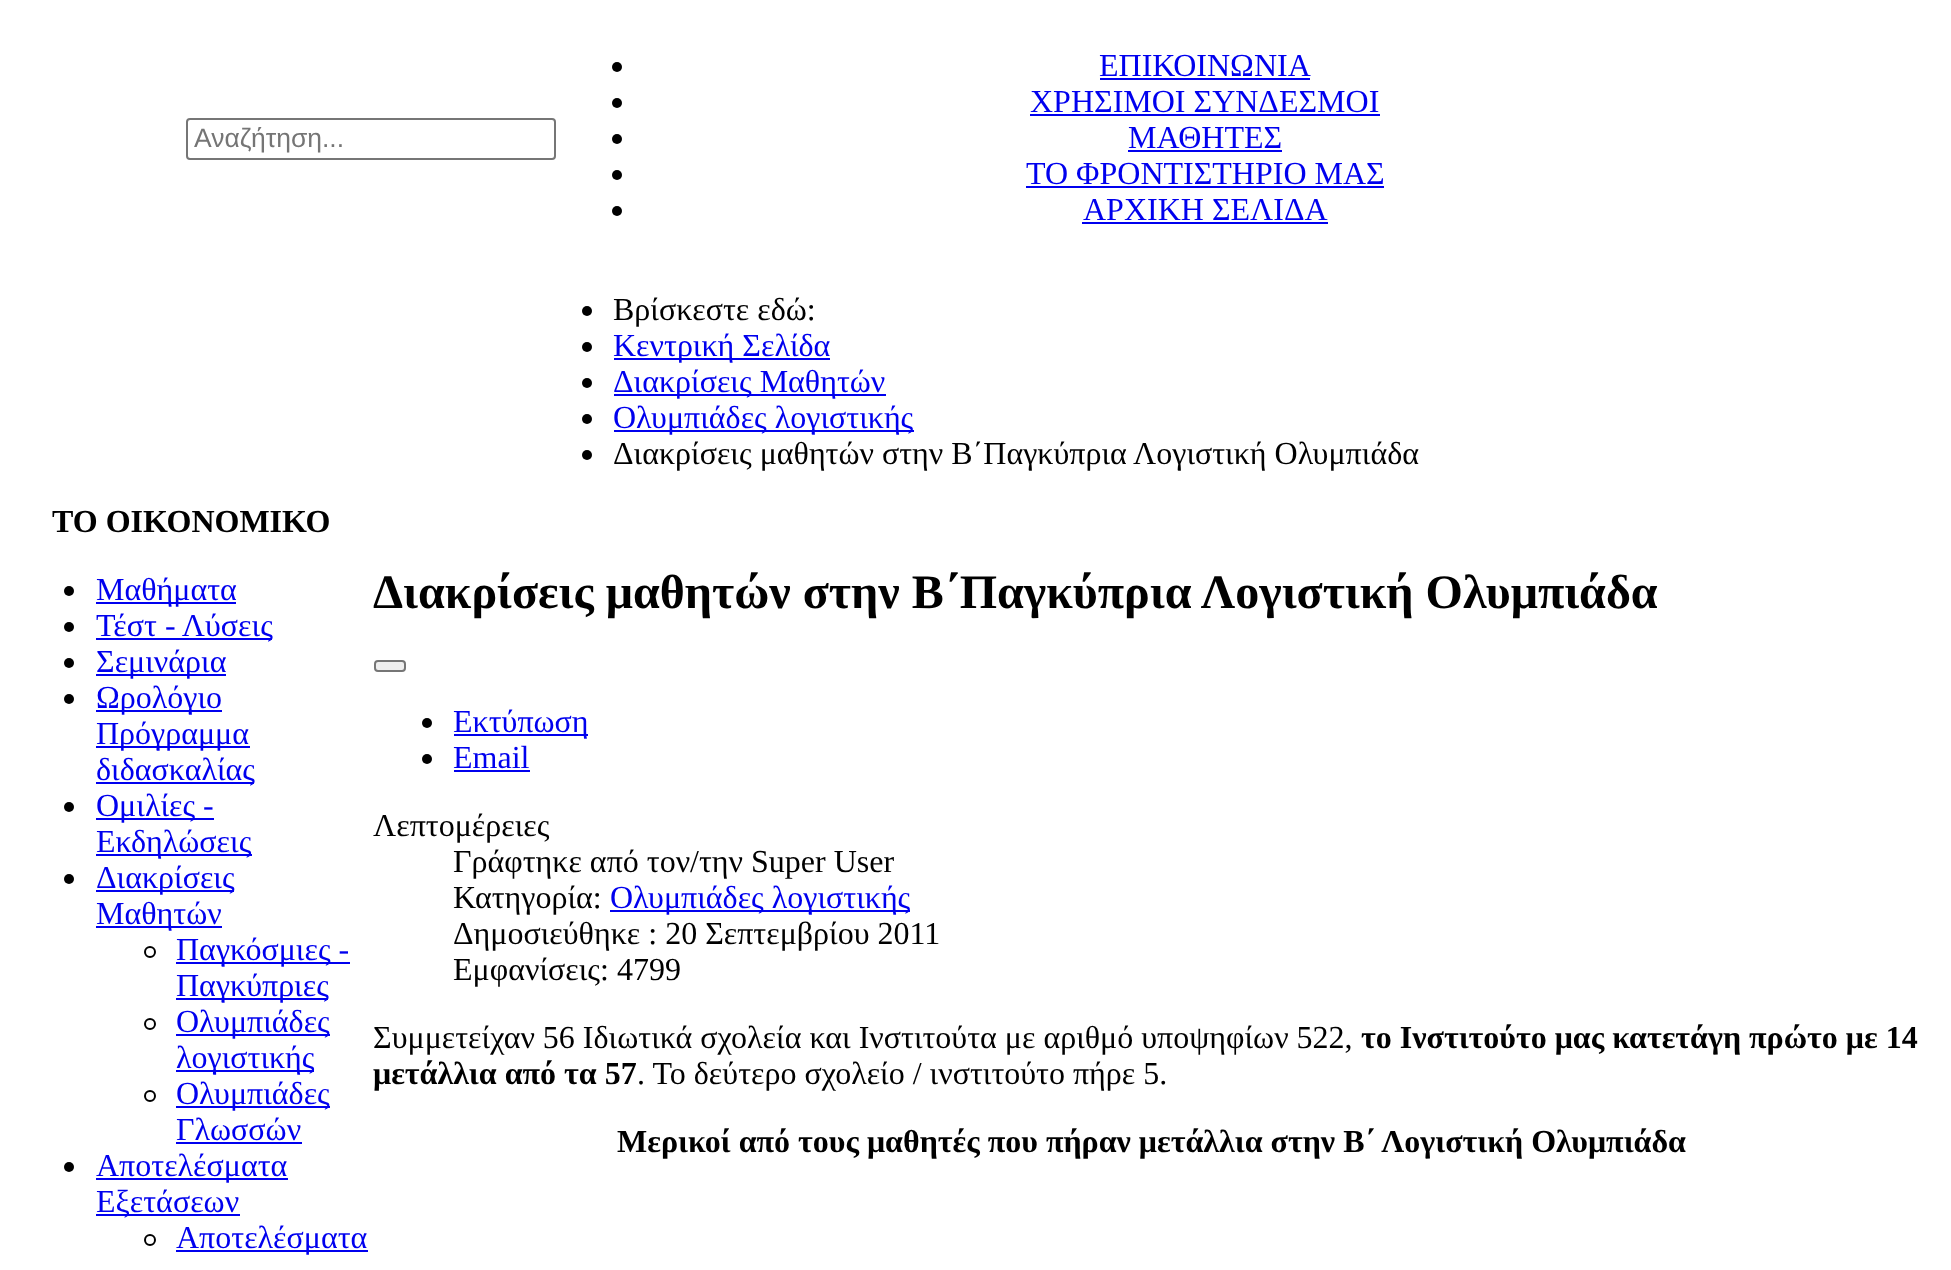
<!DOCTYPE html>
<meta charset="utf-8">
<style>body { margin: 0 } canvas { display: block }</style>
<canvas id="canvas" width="1951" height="1270"></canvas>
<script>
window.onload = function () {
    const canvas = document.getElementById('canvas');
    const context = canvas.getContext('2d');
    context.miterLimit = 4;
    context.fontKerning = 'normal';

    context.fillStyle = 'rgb(255, 255, 255)';
    context.fillRect(0, 0, 1951, 1270);
    context.beginPath();
    context.roundRect(187, 119, 368, 40, 3);
    context.strokeStyle = 'rgb(118, 118, 118)';
    context.lineWidth = 2;
    context.stroke();
    context.fillStyle = 'rgb(0, 0, 0)';
    context.beginPath();
    context.arc(617, 67, 5, 0, 2 * Math.PI);
    context.fill();
    context.fillStyle = 'rgb(0, 0, 238)';
    context.fillRect(1100, 78, 210, 2);
    context.fillStyle = 'rgb(0, 0, 0)';
    context.beginPath();
    context.arc(617, 103, 5, 0, 2 * Math.PI);
    context.fill();
    context.fillStyle = 'rgb(0, 0, 238)';
    context.fillRect(1030, 114, 350, 2);
    context.fillStyle = 'rgb(0, 0, 0)';
    context.beginPath();
    context.arc(617, 139, 5, 0, 2 * Math.PI);
    context.fill();
    context.fillStyle = 'rgb(0, 0, 238)';
    context.fillRect(1128, 150, 154, 2);
    context.fillStyle = 'rgb(0, 0, 0)';
    context.beginPath();
    context.arc(617, 175, 5, 0, 2 * Math.PI);
    context.fill();
    context.fillStyle = 'rgb(0, 0, 238)';
    context.fillRect(1026, 186, 358, 2);
    context.fillStyle = 'rgb(0, 0, 0)';
    context.beginPath();
    context.arc(617, 211, 5, 0, 2 * Math.PI);
    context.fill();
    context.fillStyle = 'rgb(0, 0, 238)';
    context.fillRect(1082, 222, 246, 2);
    context.fillStyle = 'rgb(0, 0, 0)';
    context.beginPath();
    context.arc(587, 311, 5, 0, 2 * Math.PI);
    context.fill();
    context.beginPath();
    context.arc(587, 347, 5, 0, 2 * Math.PI);
    context.fill();
    context.fillStyle = 'rgb(0, 0, 238)';
    context.fillRect(614, 358, 216, 2);
    context.fillStyle = 'rgb(0, 0, 0)';
    context.beginPath();
    context.arc(587, 383, 5, 0, 2 * Math.PI);
    context.fill();
    context.fillStyle = 'rgb(0, 0, 238)';
    context.fillRect(614, 394, 272, 2);
    context.fillStyle = 'rgb(0, 0, 0)';
    context.beginPath();
    context.arc(587, 419, 5, 0, 2 * Math.PI);
    context.fill();
    context.fillStyle = 'rgb(0, 0, 238)';
    context.fillRect(614, 430, 300, 2);
    context.fillStyle = 'rgb(0, 0, 0)';
    context.beginPath();
    context.arc(587, 455, 5, 0, 2 * Math.PI);
    context.fill();
    context.beginPath();
    context.arc(69, 591, 5, 0, 2 * Math.PI);
    context.fill();
    context.fillStyle = 'rgb(0, 0, 238)';
    context.fillRect(96, 602, 140, 2);
    context.fillStyle = 'rgb(0, 0, 0)';
    context.beginPath();
    context.arc(69, 627, 5, 0, 2 * Math.PI);
    context.fill();
    context.fillStyle = 'rgb(0, 0, 238)';
    context.fillRect(96, 638, 176, 2);
    context.fillStyle = 'rgb(0, 0, 0)';
    context.beginPath();
    context.arc(69, 663, 5, 0, 2 * Math.PI);
    context.fill();
    context.fillStyle = 'rgb(0, 0, 238)';
    context.fillRect(96, 674, 130, 2);
    context.fillStyle = 'rgb(0, 0, 0)';
    context.beginPath();
    context.arc(69, 699, 5, 0, 2 * Math.PI);
    context.fill();
    context.fillStyle = 'rgb(0, 0, 238)';
    context.fillRect(96, 710, 126, 2);
    context.fillRect(96, 746, 154, 2);
    context.fillRect(96, 782, 158, 2);
    context.fillStyle = 'rgb(0, 0, 0)';
    context.beginPath();
    context.arc(69, 807, 5, 0, 2 * Math.PI);
    context.fill();
    context.fillStyle = 'rgb(0, 0, 238)';
    context.fillRect(96, 818, 118, 2);
    context.fillRect(96, 854, 156, 2);
    context.fillStyle = 'rgb(0, 0, 0)';
    context.beginPath();
    context.arc(69, 879, 5, 0, 2 * Math.PI);
    context.fill();
    context.fillStyle = 'rgb(0, 0, 238)';
    context.fillRect(96, 890, 138, 2);
    context.fillRect(96, 926, 126, 2);
    context.beginPath();
    context.arc(150, 952, 5, 0, 2 * Math.PI);
    context.strokeStyle = 'rgb(0, 0, 0)';
    context.stroke();
    context.fillRect(176, 962, 174, 2);
    context.fillRect(176, 998, 152, 2);
    context.beginPath();
    context.arc(150, 1024, 5, 0, 2 * Math.PI);
    context.stroke();
    context.fillRect(176, 1034, 154, 2);
    context.fillRect(176, 1070, 138, 2);
    context.beginPath();
    context.arc(150, 1096, 5, 0, 2 * Math.PI);
    context.stroke();
    context.fillRect(176, 1106, 154, 2);
    context.fillRect(176, 1142, 126, 2);
    context.fillStyle = 'rgb(0, 0, 0)';
    context.beginPath();
    context.arc(69, 1167, 5, 0, 2 * Math.PI);
    context.fill();
    context.fillStyle = 'rgb(0, 0, 238)';
    context.fillRect(96, 1178, 192, 2);
    context.fillRect(96, 1214, 144, 2);
    context.beginPath();
    context.arc(150, 1240, 5, 0, 2 * Math.PI);
    context.stroke();
    context.fillRect(176, 1250, 192, 2);
    context.fillStyle = 'rgb(239, 239, 239)';
    context.beginPath();
    context.roundRect(375, 661, 30, 10, 3);
    context.fill();
    context.strokeStyle = 'rgb(118, 118, 118)';
    context.stroke();
    context.fillStyle = 'rgb(0, 0, 0)';
    context.beginPath();
    context.arc(427, 723, 5, 0, 2 * Math.PI);
    context.fill();
    context.fillStyle = 'rgb(0, 0, 238)';
    context.fillRect(454, 734, 134, 2);
    context.fillStyle = 'rgb(0, 0, 0)';
    context.beginPath();
    context.arc(427, 759, 5, 0, 2 * Math.PI);
    context.fill();
    context.fillStyle = 'rgb(0, 0, 238)';
    context.fillRect(454, 770, 76, 2);
    context.fillRect(610, 910, 300, 2);
    context.font = '26.5px Liberation Sans';
    context.fillStyle = 'rgb(117, 117, 117)';
    context.fillText('Αναζήτηση...', 194, 147);
    context.font = '32px Liberation Serif';
    context.fillStyle = 'rgb(0, 0, 238)';
    context.fillText('ΕΠΙΚΟΙΝΩΝΙΑ', 1099, 76);
    context.fillText('ΧΡΗΣΙΜΟΙ ΣΥΝΔΕΣΜΟΙ', 1030, 112);
    context.fillText('ΜΑΘΗΤΕΣ', 1128, 148);
    context.fillText('ΤΟ ΦΡΟΝΤΙΣΤΗΡΙΟ ΜΑΣ', 1026, 184);
    context.fillText('ΑΡΧΙΚΗ ΣΕΛΙΔΑ', 1083, 220);
    context.fillStyle = 'rgb(0, 0, 0)';
    context.fillText('Βρίσκεστε εδώ:', 613, 320);
    context.fillStyle = 'rgb(0, 0, 238)';
    context.fillText('Κεντρική Σελίδα', 613, 356);
    context.fillText('Διακρίσεις Μαθητών', 613, 392);
    context.fillText('Ολυμπιάδες λογιστικής', 613, 428);
    context.fillStyle = 'rgb(0, 0, 0)';
    context.fillText('Διακρίσεις μαθητών στην Β΄Παγκύπρια Λογιστική Ολυμπιάδα', 613, 464);
    context.font = 'bold 32px Liberation Serif';
    context.fillText('ΤΟ ΟΙΚΟΝΟΜΙΚΟ', 52, 532);
    context.font = '32px Liberation Serif';
    context.fillStyle = 'rgb(0, 0, 238)';
    context.fillText('Μαθήματα', 96, 600);
    context.fillText('Τέστ - Λύσεις', 96, 636);
    context.fillText('Σεμινάρια', 96, 672);
    context.fillText('Ωρολόγιο', 96, 708);
    context.fillText('Πρόγραμμα', 96, 744);
    context.fillText('διδασκαλίας', 96, 780);
    context.fillText('Ομιλίες -', 96, 816);
    context.fillText('Εκδηλώσεις', 96, 852);
    context.fillText('Διακρίσεις', 96, 888);
    context.fillText('Μαθητών', 96, 924);
    context.fillText('Παγκόσμιες -', 176, 960);
    context.fillText('Παγκύπριες', 176, 996);
    context.fillText('Ολυμπιάδες', 176, 1032);
    context.fillText('λογιστικής', 176, 1068);
    context.fillText('Ολυμπιάδες', 176, 1104);
    context.fillText('Γλωσσών', 176, 1140);
    context.fillText('Αποτελέσματα', 96, 1176);
    context.fillText('Εξετάσεων', 96, 1212);
    context.fillText('Αποτελέσματα', 176, 1248);
    context.font = 'bold 48px Liberation Serif';
    context.fillStyle = 'rgb(0, 0, 0)';
    context.fillText('Διακρίσεις μαθητών στην Β΄Παγκύπρια Λογιστική Ολυμπιάδα', 373, 608);
    context.font = '32px Liberation Serif';
    context.fillStyle = 'rgb(0, 0, 238)';
    context.fillText('Εκτύπωση', 453, 732);
    context.fillText('Email', 453, 768);
    context.fillStyle = 'rgb(0, 0, 0)';
    context.fillText('Λεπτομέρειες', 373, 836);
    context.fillText('Γράφτηκε από τον/την Super User', 453, 872);
    context.fillText('Κατηγορία:', 453, 908);
    context.fillStyle = 'rgb(0, 0, 238)';
    context.fillText('Ολυμπιάδες λογιστικής', 610, 908);
    context.fillStyle = 'rgb(0, 0, 0)';
    context.fillText('Δημοσιεύθηκε : 20 Σεπτεμβρίου 2011', 453, 944);
    context.fillText('Εμφανίσεις: 4799', 453, 980);
    context.fillText('Συμμετείχαν 56 Ιδιωτικά σχολεία και Ινστιτούτα με αριθμό υποψηφίων 522,', 373, 1048);
    context.font = 'bold 32px Liberation Serif';
    context.fillText('το Ινστιτούτο μας κατετάγη πρώτο με 14', 1361, 1048);
    context.fillText('μετάλλια από τα 57', 373, 1084);
    context.font = '32px Liberation Serif';
    context.fillText('. Το δεύτερο σχολείο / ινστιτούτο πήρε 5.', 637, 1084);
    context.font = 'bold 32px Liberation Serif';
    context.fillText('Μερικοί από τους μαθητές που πήραν μετάλλια στην B΄ Λογιστική Ολυμπιάδα', 617, 1152);
};
</script>
